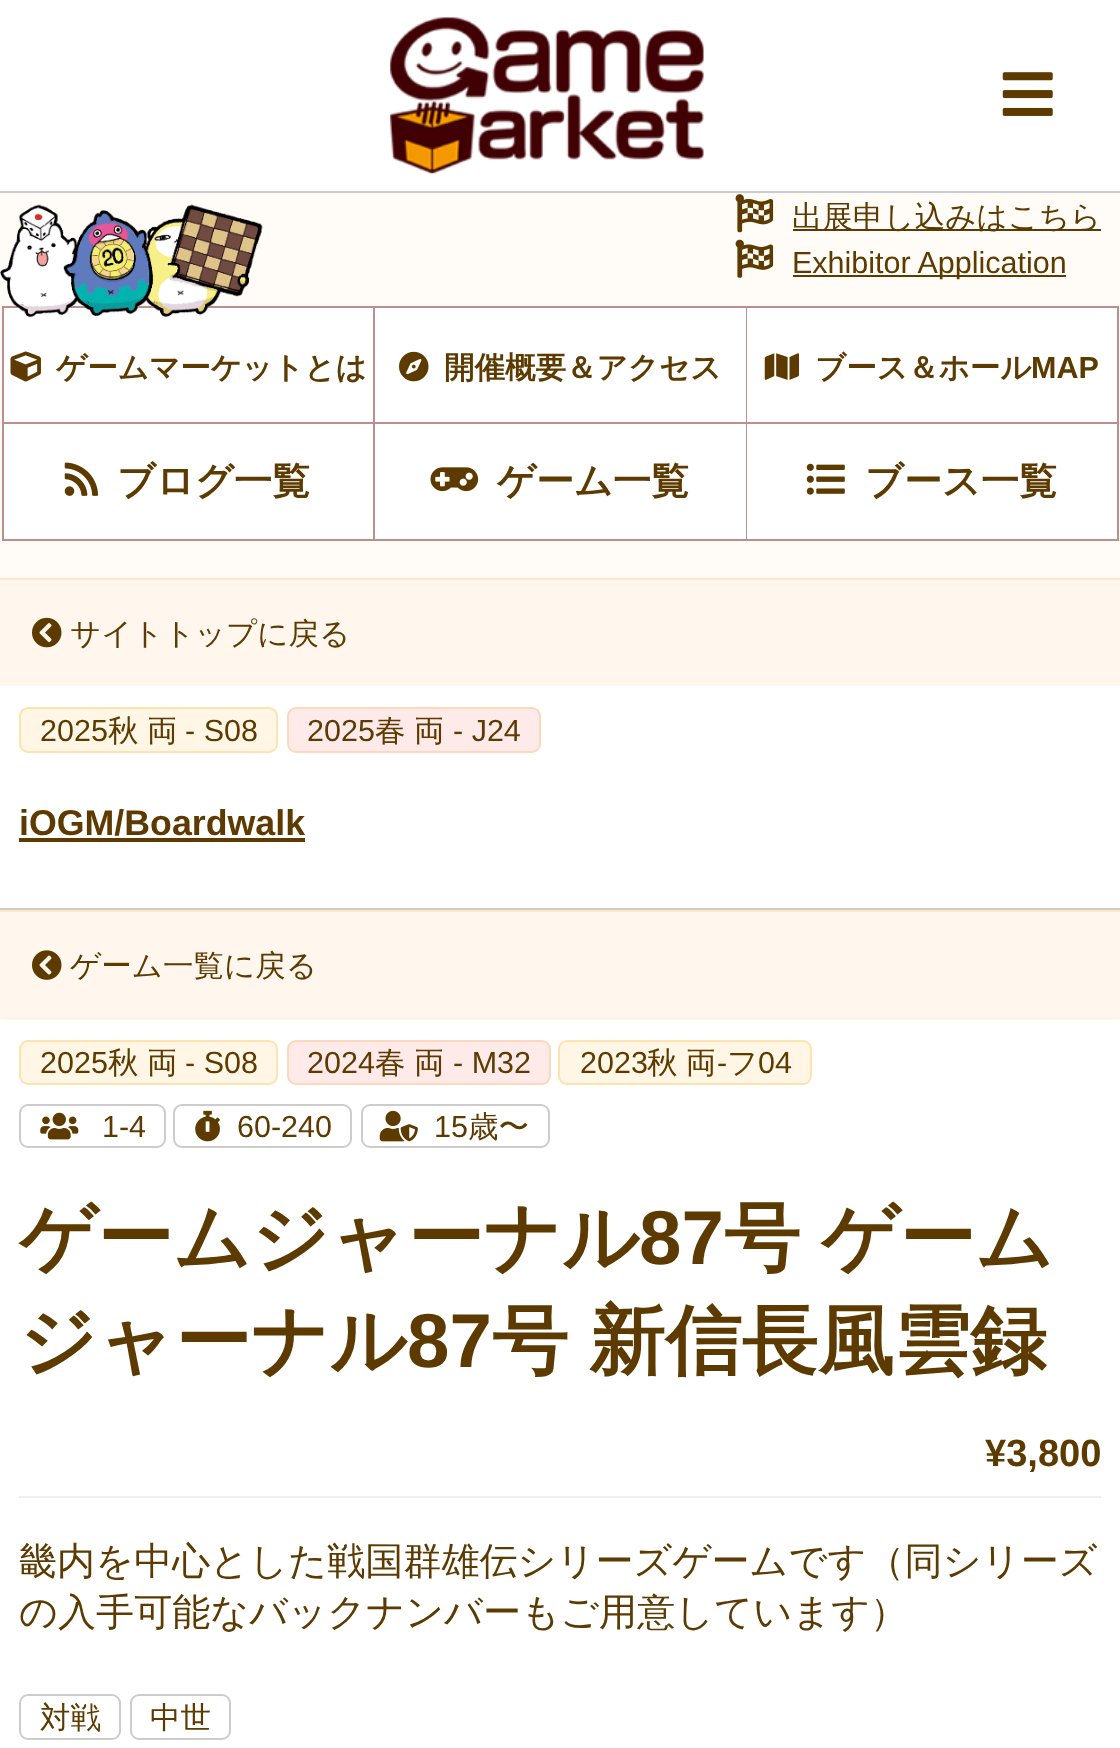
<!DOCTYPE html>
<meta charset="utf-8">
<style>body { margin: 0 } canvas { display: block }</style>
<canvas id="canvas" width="1120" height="1748"></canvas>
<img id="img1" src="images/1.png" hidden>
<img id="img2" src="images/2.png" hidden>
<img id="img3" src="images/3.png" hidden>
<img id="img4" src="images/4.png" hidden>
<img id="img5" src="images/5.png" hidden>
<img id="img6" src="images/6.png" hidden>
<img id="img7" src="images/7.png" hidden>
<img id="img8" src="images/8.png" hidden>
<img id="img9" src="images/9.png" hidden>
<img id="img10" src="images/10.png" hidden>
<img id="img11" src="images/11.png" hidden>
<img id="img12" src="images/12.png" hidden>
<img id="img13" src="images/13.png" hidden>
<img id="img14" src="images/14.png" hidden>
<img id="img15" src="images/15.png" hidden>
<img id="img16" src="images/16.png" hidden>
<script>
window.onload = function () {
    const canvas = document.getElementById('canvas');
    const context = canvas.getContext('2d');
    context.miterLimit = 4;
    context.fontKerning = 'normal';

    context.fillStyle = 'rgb(255, 251, 246)';
    context.fillRect(0, 0, 1120, 1748);
    context.fillStyle = 'rgb(255, 255, 255)';
    context.fillRect(0, 0, 1120, 191);
    context.fillStyle = 'rgb(204, 204, 204)';
    context.fillRect(0, 191, 1120, 2);
    context.drawImage(document.getElementById('img1'), 390, 17, 314, 157);
    context.drawImage(document.getElementById('img2'), 1002, 72, 51, 44);
    context.drawImage(document.getElementById('img3'), 735, 194, 39, 39);
    context.fillStyle = 'rgb(92, 58, 0)';
    context.fillRect(793, 229, 308, 2);
    context.drawImage(document.getElementById('img4'), 735, 239, 39, 39);
    context.fillRect(793, 275, 273, 2);
    context.fillStyle = 'rgb(188, 143, 143)';
    context.fillRect(2, 306, 2, 235);
    context.fillRect(4, 306, 1114, 2);
    context.fillStyle = 'rgb(255, 255, 255)';
    context.fillRect(4, 308, 369, 114);
    context.drawImage(document.getElementById('img5'), 0, 204, 263, 113);
    context.fillStyle = 'rgb(188, 143, 143)';
    context.fillRect(373, 306, 2, 235);
    context.fillRect(4, 422, 371, 2);
    context.drawImage(document.getElementById('img6'), 10, 351, 31, 31);
    context.fillRect(746, 306, 1, 235);
    context.fillRect(375, 422, 372, 2);
    context.fillStyle = 'rgb(255, 255, 255)';
    context.fillRect(375, 308, 371, 114);
    context.drawImage(document.getElementById('img7'), 399, 351, 30, 31);
    context.fillStyle = 'rgb(188, 143, 143)';
    context.fillRect(1117, 306, 2, 235);
    context.fillRect(747, 422, 371, 2);
    context.fillStyle = 'rgb(255, 255, 255)';
    context.fillRect(747, 308, 370, 114);
    context.drawImage(document.getElementById('img8'), 764, 353, 36, 27);
    context.fillStyle = 'rgb(188, 143, 143)';
    context.fillRect(4, 539, 1114, 2);
    context.fillStyle = 'rgb(255, 255, 255)';
    context.fillRect(4, 424, 369, 115);
    context.drawImage(document.getElementById('img9'), 64, 462, 35, 34);
    context.fillRect(375, 424, 371, 115);
    context.drawImage(document.getElementById('img10'), 430, 467, 49, 25);
    context.fillRect(747, 424, 370, 115);
    context.drawImage(document.getElementById('img11'), 806, 463, 39, 32);
    context.fillStyle = 'rgb(255, 247, 238)';
    context.fillRect(0, 580, 1120, 106);
    context.fillStyle = 'rgb(255, 230, 200)';
    context.fillRect(0, 578, 1120, 2);
    context.fillStyle = 'rgb(255, 255, 255)';
    context.fillRect(0, 686, 1120, 222);
    context.drawImage(document.getElementById('img12'), 32, 617, 30, 31);
    context.fillStyle = 'rgb(204, 204, 204)';
    context.fillRect(0, 908, 1120, 2);
    context.fillStyle = 'rgb(255, 246, 229)';
    context.beginPath();
    context.roundRect(20, 708, 257, 44, 8);
    context.fill();
    context.strokeStyle = 'rgb(255, 226, 174)';
    context.lineWidth = 2;
    context.stroke();
    context.fillStyle = 'rgb(255, 234, 234)';
    context.beginPath();
    context.roundRect(288, 708, 252, 44, 8);
    context.fill();
    context.strokeStyle = 'rgb(255, 215, 186)';
    context.stroke();
    context.fillStyle = 'rgb(92, 58, 0)';
    context.fillRect(19, 838, 286, 4);
    context.fillStyle = 'rgb(255, 247, 238)';
    context.fillRect(0, 912, 1120, 107);
    context.fillStyle = 'rgb(255, 230, 200)';
    context.fillRect(0, 910, 1120, 2);
    context.fillStyle = 'rgb(255, 255, 255)';
    context.fillRect(0, 1019, 1120, 1);
    context.drawImage(document.getElementById('img13'), 32, 950, 30, 30);
    context.fillStyle = 'rgba(92, 58, 0, 0.25)';
    context.filter = 'blur(4.5px)';
    context.beginPath();
    context.rect(0, 1024, 1120, 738);
    context.fill();
    context.filter = 'none';
    context.fillStyle = 'rgb(255, 255, 255)';
    context.fillRect(0, 1020, 1120, 728);
    context.fillStyle = 'rgb(255, 246, 229)';
    context.beginPath();
    context.roundRect(20, 1041, 257, 43, 8);
    context.fill();
    context.strokeStyle = 'rgb(255, 226, 174)';
    context.stroke();
    context.fillStyle = 'rgb(255, 234, 234)';
    context.beginPath();
    context.roundRect(288, 1041, 262, 43, 8);
    context.fill();
    context.strokeStyle = 'rgb(255, 215, 186)';
    context.stroke();
    context.fillStyle = 'rgb(255, 246, 229)';
    context.beginPath();
    context.roundRect(559, 1041, 252, 43, 8);
    context.fill();
    context.strokeStyle = 'rgb(255, 226, 174)';
    context.stroke();
    context.beginPath();
    context.roundRect(20, 1105, 145, 42, 8);
    context.strokeStyle = 'rgb(204, 204, 204)';
    context.stroke();
    context.drawImage(document.getElementById('img14'), 40, 1112, 39, 28);
    context.beginPath();
    context.roundRect(174, 1105, 177, 42, 8);
    context.stroke();
    context.drawImage(document.getElementById('img15'), 195, 1110, 25, 32);
    context.beginPath();
    context.roundRect(362, 1105, 187, 42, 8);
    context.stroke();
    context.drawImage(document.getElementById('img16'), 379, 1110, 39, 32);
    context.fillStyle = 'rgb(239, 239, 239)';
    context.fillRect(19, 1496, 1082, 2);
    context.beginPath();
    context.roundRect(20, 1695, 100, 44, 8);
    context.stroke();
    context.beginPath();
    context.roundRect(131, 1695, 99, 44, 8);
    context.stroke();
    context.font = '500 30.5px WenQuanYi Zen Hei';
    context.fillStyle = 'rgb(92, 58, 0)';
    context.fillText('出展申し込みはこちら', 792, 227);
    context.font = '30.5px Liberation Sans';
    context.fillText('Exhibitor Application', 792, 273);
    context.font = 'bold 30.5px WenQuanYi Zen Hei';
    context.fillText('ゲームマーケットとは', 56, 378);
    context.fillText('開催概要＆アクセス', 444, 378);
    context.fillText('ブース＆ホール', 815, 378);
    context.font = 'bold 30.5px Liberation Sans';
    context.fillText('MAP', 1031, 378);
    context.font = 'bold 38.1px WenQuanYi Zen Hei';
    context.fillText('ブログ一覧', 117, 494);
    context.fillText('ゲーム一覧', 497, 494);
    context.fillText('ブース一覧', 865, 494);
    context.font = '500 30.5px WenQuanYi Zen Hei';
    context.fillText('サイトトップに戻る', 70, 644);
    context.font = '30.5px Liberation Sans';
    context.fillText('2025', 40, 741);
    context.font = '500 30.5px WenQuanYi Zen Hei';
    context.fillText('秋', 108, 741);
    context.fillText('両', 147, 741);
    context.font = '30.5px Liberation Sans';
    context.fillText('- S08', 185, 741);
    context.fillText('2025', 307, 741);
    context.font = '500 30.5px WenQuanYi Zen Hei';
    context.fillText('春', 375, 741);
    context.fillText('両', 414, 741);
    context.font = '30.5px Liberation Sans';
    context.fillText('- J24', 453, 741);
    context.font = 'bold 35.75px Liberation Sans';
    context.fillText('iOGM/Boardwalk', 19, 835);
    context.font = '500 30.5px WenQuanYi Zen Hei';
    context.fillText('ゲーム一覧に戻る', 70, 976);
    context.font = '30.5px Liberation Sans';
    context.fillText('2025', 40, 1073);
    context.font = '500 30.5px WenQuanYi Zen Hei';
    context.fillText('秋', 108, 1073);
    context.fillText('両', 147, 1073);
    context.font = '30.5px Liberation Sans';
    context.fillText('- S08', 185, 1073);
    context.fillText('2024', 307, 1073);
    context.font = '500 30.5px WenQuanYi Zen Hei';
    context.fillText('春', 375, 1073);
    context.fillText('両', 414, 1073);
    context.font = '30.5px Liberation Sans';
    context.fillText('- M32', 453, 1073);
    context.fillText('2023', 580, 1073);
    context.wordSpacing = '-1px';
    context.font = '500 30.5px WenQuanYi Zen Hei';
    context.fillText('秋 両', 647, 1073);
    context.wordSpacing = '0px';
    context.font = '30.5px Liberation Sans';
    context.fillText('-', 717, 1073);
    context.font = '500 30.5px WenQuanYi Zen Hei';
    context.fillText('フ', 727, 1073);
    context.font = '30.5px Liberation Sans';
    context.fillText('04', 758, 1073);
    context.fillText('1-4', 102, 1137);
    context.fillText('60-240', 237, 1137);
    context.fillText('15', 434, 1137);
    context.font = '500 30.5px WenQuanYi Zen Hei';
    context.fillText('歳〜', 468, 1137);
    context.font = 'bold 76.25px WenQuanYi Zen Hei';
    context.fillText('ゲームジャーナル', 19, 1264);
    context.font = 'bold 76.25px Liberation Sans';
    context.fillText('87', 639, 1264);
    context.wordSpacing = '-2px';
    context.font = 'bold 76.25px WenQuanYi Zen Hei';
    context.fillText('号 ゲーム', 724, 1264);
    context.wordSpacing = '0px';
    context.fillText('ジャーナル', 19, 1367);
    context.font = 'bold 76.25px Liberation Sans';
    context.fillText('87', 407, 1367);
    context.wordSpacing = '-2px';
    context.font = 'bold 76.25px WenQuanYi Zen Hei';
    context.fillText('号 新信長風雲録', 492, 1367);
    context.wordSpacing = '0px';
    context.font = 'bold 38.1px Liberation Sans';
    context.fillText('¥3,800', 985, 1466);
    context.font = '500 38.1px WenQuanYi Zen Hei';
    context.fillText('畿内を中心とした戦国群雄伝シリーズゲームです（同シリーズ', 19, 1574);
    context.fillText('の入手可能なバックナンバーもご用意しています）', 19, 1625);
    context.font = '500 30.5px WenQuanYi Zen Hei';
    context.fillText('対戦', 40, 1728);
    context.fillText('中世', 150, 1728);
};
</script>
